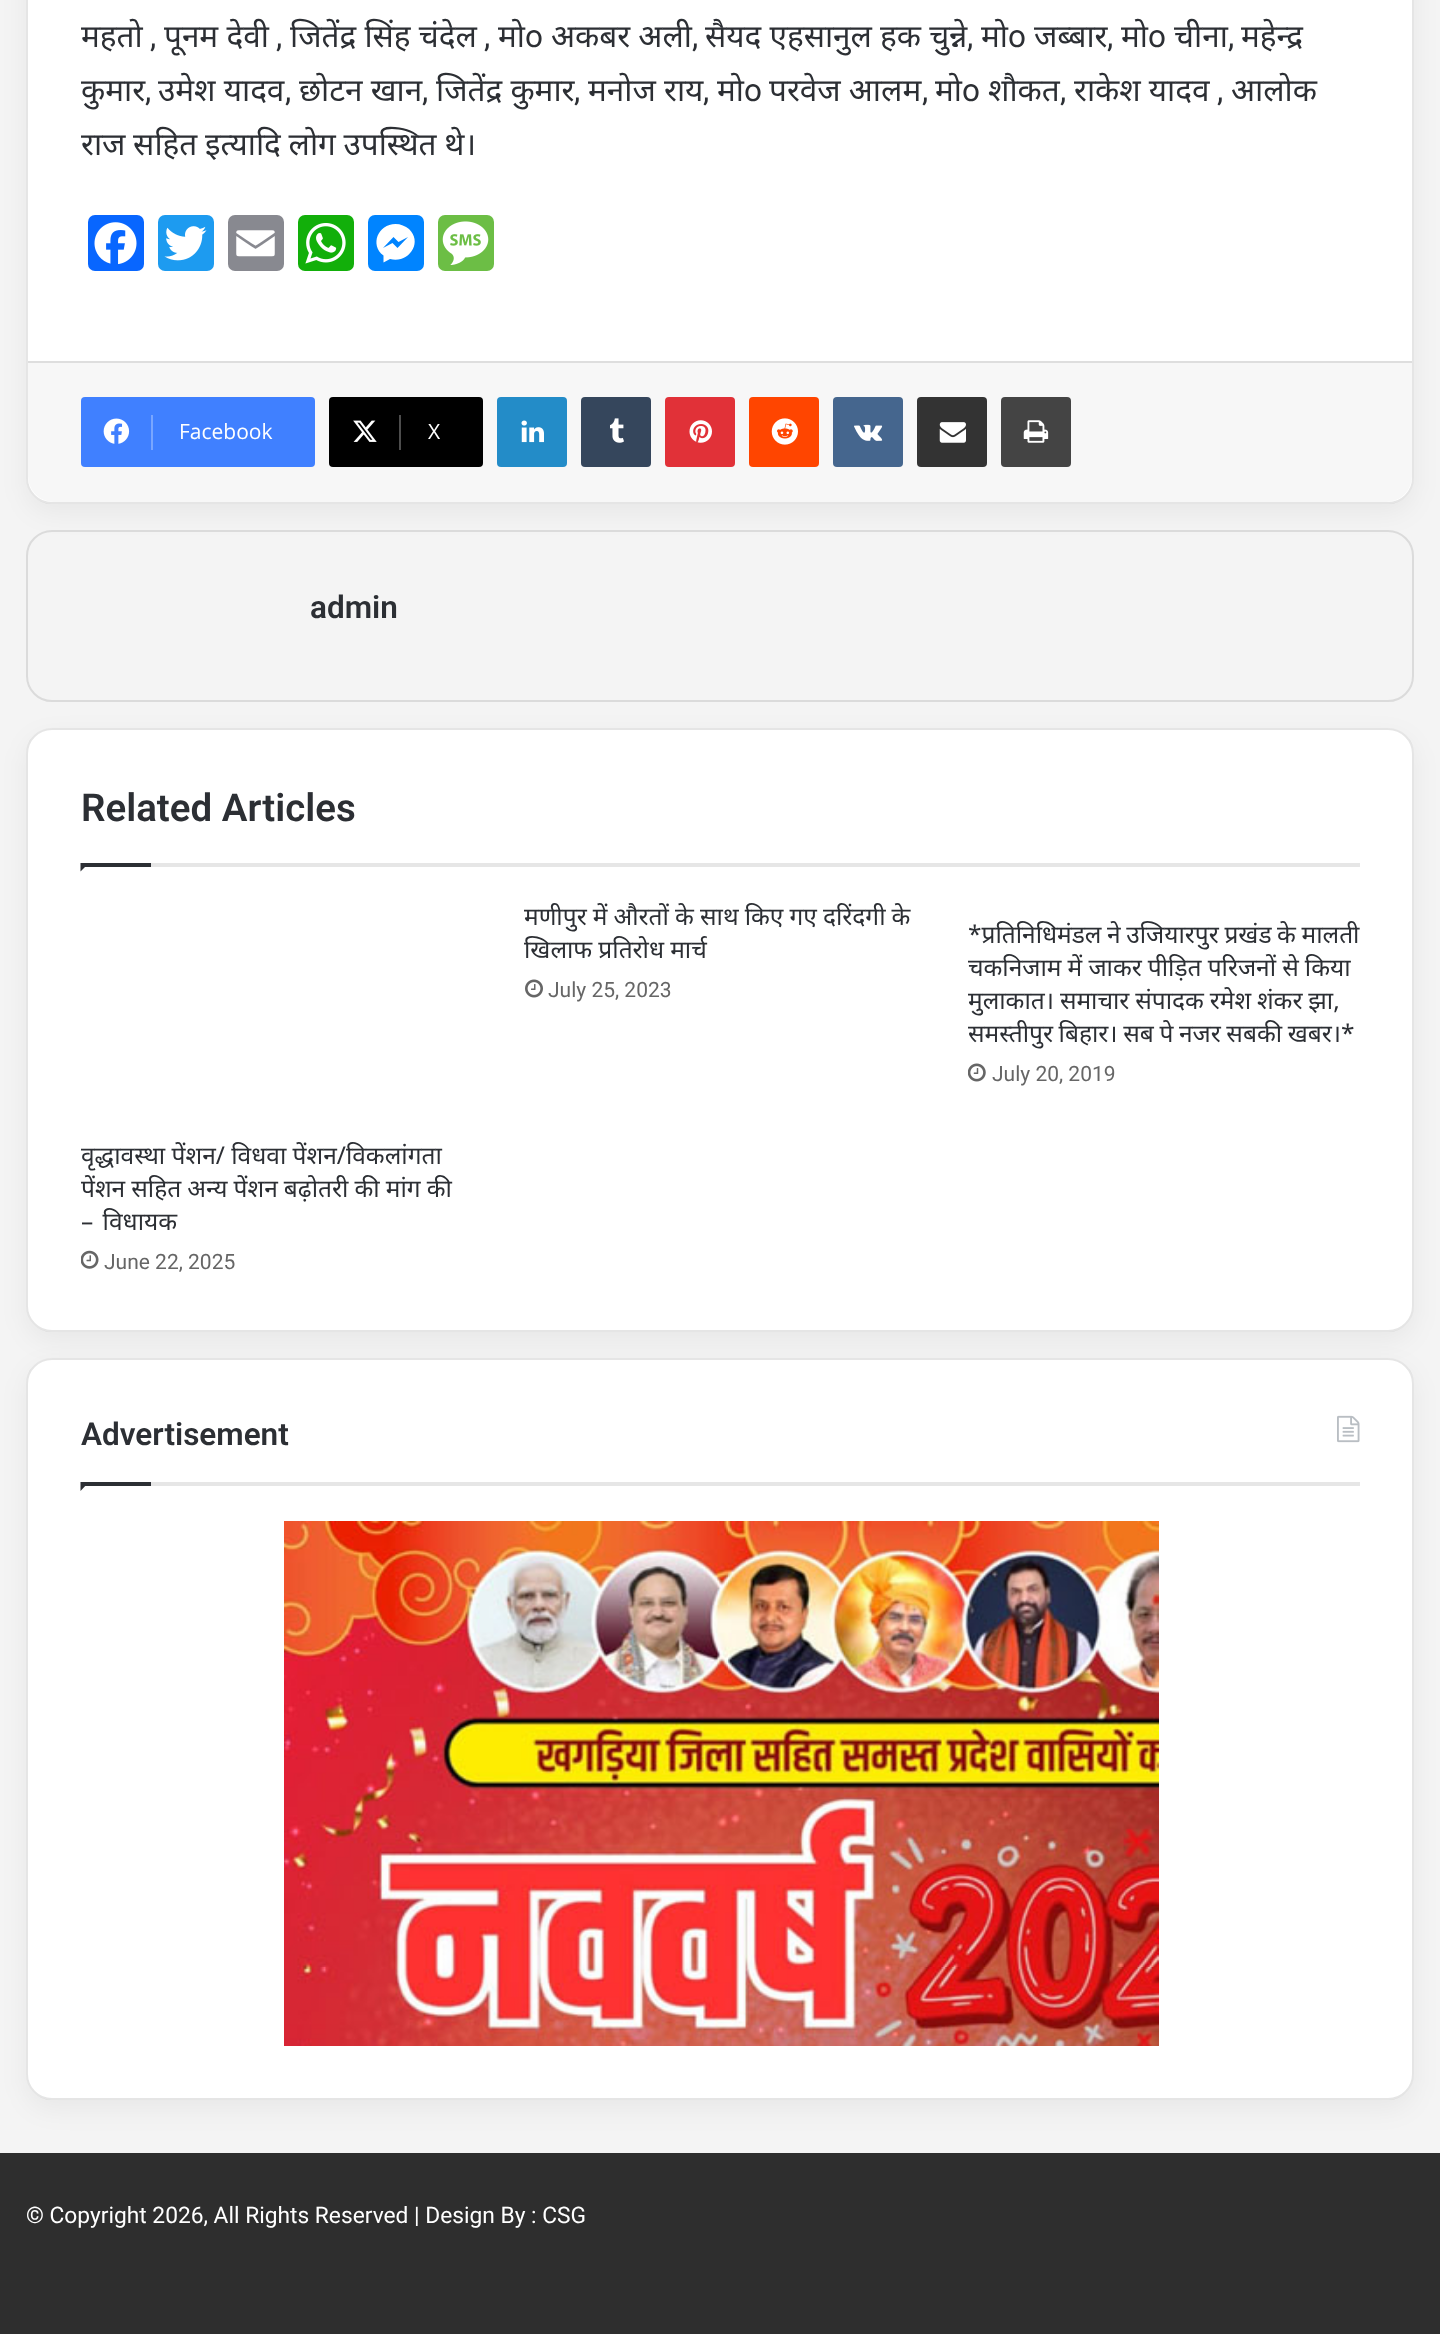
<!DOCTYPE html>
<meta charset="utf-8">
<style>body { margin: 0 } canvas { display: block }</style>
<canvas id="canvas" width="1440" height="2334"></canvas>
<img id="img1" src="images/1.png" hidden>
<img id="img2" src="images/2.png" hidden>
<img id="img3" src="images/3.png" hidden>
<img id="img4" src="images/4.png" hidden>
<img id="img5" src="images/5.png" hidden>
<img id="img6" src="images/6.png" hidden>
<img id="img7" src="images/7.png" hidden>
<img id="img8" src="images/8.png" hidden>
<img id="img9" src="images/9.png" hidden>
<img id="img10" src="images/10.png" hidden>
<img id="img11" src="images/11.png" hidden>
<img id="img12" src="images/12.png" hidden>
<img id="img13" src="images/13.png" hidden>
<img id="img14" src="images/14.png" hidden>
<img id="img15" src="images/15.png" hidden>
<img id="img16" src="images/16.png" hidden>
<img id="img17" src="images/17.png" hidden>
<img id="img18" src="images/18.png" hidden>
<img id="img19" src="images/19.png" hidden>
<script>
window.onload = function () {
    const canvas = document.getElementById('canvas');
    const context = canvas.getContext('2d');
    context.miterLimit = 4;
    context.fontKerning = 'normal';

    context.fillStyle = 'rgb(244, 244, 244)';
    context.fillRect(0, 0, 1440, 2334);
    context.fillStyle = 'rgba(0, 0, 0, 0.05)';
    context.filter = 'blur(13px)';
    context.beginPath();
    context.roundRect(26, -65, 1388, 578, 26);
    context.fill();
    context.filter = 'none';
    context.fillStyle = 'rgb(255, 255, 255)';
    context.beginPath();
    context.roundRect(26, -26, 1388, 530, 26);
    context.fill();
    context.beginPath();
    context.roundRect(27, -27, 1386, 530, 25);
    context.strokeStyle = 'rgba(0, 0, 0, 0.1)';
    context.lineWidth = 2;
    context.stroke();
    context.fillStyle = 'rgb(8, 102, 255)';
    context.beginPath();
    context.roundRect(88, 215, 56, 56, 7);
    context.fill();
    context.drawImage(document.getElementById('img1'), 94, 222, 43, 43);
    context.fillStyle = 'rgb(29, 155, 240)';
    context.beginPath();
    context.roundRect(158, 215, 56, 56, 7);
    context.fill();
    context.drawImage(document.getElementById('img2'), 164, 226, 43, 35);
    context.fillStyle = 'rgb(136, 137, 144)';
    context.beginPath();
    context.roundRect(228, 215, 56, 56, 7);
    context.fill();
    context.drawImage(document.getElementById('img3'), 236, 230, 39, 27);
    context.fillStyle = 'rgb(18, 175, 10)';
    context.beginPath();
    context.roundRect(298, 215, 56, 56, 7);
    context.fill();
    context.drawImage(document.getElementById('img4'), 305, 223, 41, 41);
    context.fillStyle = 'rgb(0, 132, 255)';
    context.beginPath();
    context.roundRect(368, 215, 56, 56, 7);
    context.fill();
    context.fillStyle = 'rgb(255, 255, 255)';
    context.beginPath();
    context.moveTo(395.5, 224);
    context.bezierCurveTo(378, 224, 369.5, 245, 383.5, 255.5);
    context.lineTo(383.5, 262.5);
    context.lineTo(390, 259);
    context.bezierCurveTo(408, 264, 423.5, 243, 409, 229);
    context.bezierCurveTo(405.5, 226, 400.5, 224, 395.5, 224);
    context.moveTo(397.5, 248);
    context.lineTo(392.5, 243);
    context.lineTo(383, 248);
    context.lineTo(393.5, 237);
    context.lineTo(398.5, 242);
    context.lineTo(408, 237);
    context.closePath();
    context.fill();
    context.fillStyle = 'rgb(108, 190, 69)';
    context.beginPath();
    context.roundRect(438, 215, 56, 56, 7);
    context.fill();
    context.drawImage(document.getElementById('img5'), 442, 221, 47, 44);
    context.fillStyle = 'rgb(247, 247, 247)';
    context.beginPath();
    context.roundRect(28, 361, 1384, 141, [0, 0, 26, 26]);
    context.fill();
    context.fillStyle = 'rgb(222, 222, 222)';
    context.fillRect(28, 361, 1384, 2);
    context.fillStyle = 'rgb(64, 128, 255)';
    context.beginPath();
    context.roundRect(81, 397, 234, 70, 4);
    context.fill();
    context.drawImage(document.getElementById('img6'), 103, 418, 27, 26);
    context.fillStyle = 'rgb(121, 166, 255)';
    context.fillRect(151, 415, 2, 35);
    context.fillStyle = 'rgb(0, 0, 0)';
    context.beginPath();
    context.roundRect(329, 397, 154, 70, 4);
    context.fill();
    context.drawImage(document.getElementById('img7'), 353, 420, 24, 22);
    context.fillStyle = 'rgb(77, 77, 77)';
    context.fillRect(399, 415, 2, 35);
    context.fillStyle = 'rgb(35, 140, 200)';
    context.beginPath();
    context.roundRect(497, 397, 70, 70, 4);
    context.fill();
    context.drawImage(document.getElementById('img8'), 521, 420, 23, 23);
    context.fillStyle = 'rgb(53, 70, 92)';
    context.beginPath();
    context.roundRect(581, 397, 70, 70, 4);
    context.fill();
    context.drawImage(document.getElementById('img9'), 610, 418, 14, 25);
    context.fillStyle = 'rgb(225, 49, 56)';
    context.beginPath();
    context.roundRect(665, 397, 70, 70, 4);
    context.fill();
    context.drawImage(document.getElementById('img10'), 689, 420, 23, 23);
    context.fillStyle = 'rgb(255, 69, 0)';
    context.beginPath();
    context.roundRect(749, 397, 70, 70, 4);
    context.fill();
    context.drawImage(document.getElementById('img11'), 771, 418, 27, 27);
    context.fillStyle = 'rgb(69, 102, 142)';
    context.beginPath();
    context.roundRect(833, 397, 70, 70, 4);
    context.fill();
    context.drawImage(document.getElementById('img12'), 854, 424, 29, 17);
    context.fillStyle = 'rgb(51, 51, 51)';
    context.beginPath();
    context.roundRect(917, 397, 70, 70, 4);
    context.fill();
    context.drawImage(document.getElementById('img13'), 939, 422, 27, 21);
    context.fillStyle = 'rgb(68, 68, 68)';
    context.beginPath();
    context.roundRect(1001, 397, 70, 70, 4);
    context.fill();
    context.drawImage(document.getElementById('img14'), 1023, 420, 26, 23);
    context.fillStyle = 'rgba(0, 0, 0, 0.05)';
    context.filter = 'blur(13px)';
    context.beginPath();
    context.roundRect(26, 737, 1388, 604, 26);
    context.fill();
    context.filter = 'none';
    context.beginPath();
    context.roundRect(27, 531, 1386, 170, 25);
    context.strokeStyle = 'rgb(219, 219, 219)';
    context.stroke();
    context.fillStyle = 'rgb(255, 255, 255)';
    context.beginPath();
    context.roundRect(26, 728, 1388, 604, 26);
    context.fill();
    context.beginPath();
    context.roundRect(27, 729, 1386, 602, 25);
    context.strokeStyle = 'rgba(0, 0, 0, 0.1)';
    context.stroke();
    context.fillStyle = 'rgb(230, 230, 230)';
    context.fillRect(151, 863, 1209, 4);
    context.fillStyle = 'rgb(44, 47, 52)';
    context.beginPath();
    context.moveTo(80.5, 863);
    context.lineTo(89, 863);
    context.lineTo(80.5, 871.5);
    context.closePath();
    context.fill();
    context.fillRect(81, 863, 70, 4);
    context.drawImage(document.getElementById('img15'), 525, 979, 18, 19);
    context.drawImage(document.getElementById('img16'), 968, 1063, 18, 19);
    context.drawImage(document.getElementById('img17'), 81, 1250, 18, 19);
    context.fillStyle = 'rgba(0, 0, 0, 0.05)';
    context.filter = 'blur(13px)';
    context.beginPath();
    context.roundRect(26, 1367, 1388, 742, 26);
    context.fill();
    context.filter = 'none';
    context.fillStyle = 'rgb(255, 255, 255)';
    context.beginPath();
    context.roundRect(26, 1358, 1388, 742, 26);
    context.fill();
    context.beginPath();
    context.roundRect(27, 1359, 1386, 740, 25);
    context.stroke();
    context.fillStyle = 'rgb(230, 230, 230)';
    context.fillRect(151, 1482, 1209, 4);
    context.drawImage(document.getElementById('img18'), 1337, 1415, 23, 28);
    context.fillStyle = 'rgb(44, 47, 52)';
    context.beginPath();
    context.moveTo(80.5, 1482);
    context.lineTo(89, 1482);
    context.lineTo(80.5, 1491);
    context.closePath();
    context.fill();
    context.fillRect(81, 1482, 70, 4);
    context.drawImage(document.getElementById('img19'), 284, 1521, 875, 525);
    context.fillStyle = 'rgb(46, 46, 46)';
    context.fillRect(0, 2153, 1440, 181);
    context.font = '31.5px Noto Sans';
    context.fillStyle = 'rgb(44, 47, 52)';
    context.fillText('महतो', 81, 47);
    context.font = '31.5px Roboto';
    context.fillText(',', 150, 47);
    context.font = '31.5px Noto Sans';
    context.fillText('पूनम देवी', 164, 47);
    context.font = '31.5px Roboto';
    context.fillText(',', 276, 47);
    context.font = '31.5px Noto Sans';
    context.fillText('जितेंद्र सिंह चंदेल', 290, 47);
    context.font = '31.5px Roboto';
    context.fillText(',', 484, 47);
    context.font = '31.5px Noto Sans';
    context.fillText('मो', 498, 47);
    context.font = '31.5px Roboto';
    context.fillText('o', 525, 47);
    context.font = '31.5px Noto Sans';
    context.fillText('अकबर अली', 551, 47);
    context.fillText('मो', 981, 47);
    context.font = '31.5px Roboto';
    context.fillText('o', 1008, 47);
    context.font = '31.5px Noto Sans';
    context.fillText('जब्बार', 1034, 47);
    context.fillText('मो', 1121, 47);
    context.font = '31.5px Roboto';
    context.fillText('o', 1148, 47);
    context.font = '31.5px Noto Sans';
    context.fillText('चीना', 1174, 47);
    context.fillText('महेन्द्र', 1241, 47);
    context.font = '31.5px Roboto';
    context.fillText(',', 692, 47);
    context.font = '31.5px Noto Sans';
    context.fillText('सैयद एहसानुल हक चुन्ने', 705, 47);
    context.font = '31.5px Roboto';
    context.fillText(',', 967, 47);
    context.fillText(',', 1107, 47);
    context.fillText(',', 1228, 47);
    context.font = '31.5px Noto Sans';
    context.fillText('कुमार', 81, 101);
    context.font = '31.5px Roboto';
    context.fillText(',', 145, 101);
    context.font = '31.5px Noto Sans';
    context.fillText('उमेश यादव', 158, 101);
    context.font = '31.5px Roboto';
    context.fillText(',', 285, 101);
    context.font = '31.5px Noto Sans';
    context.fillText('छोटन खान', 299, 101);
    context.font = '31.5px Roboto';
    context.fillText(',', 422, 101);
    context.font = '31.5px Noto Sans';
    context.fillText('जितेंद्र कुमार', 436, 101);
    context.font = '31.5px Roboto';
    context.fillText(',', 574, 101);
    context.font = '31.5px Noto Sans';
    context.fillText('मनोज राय', 588, 101);
    context.font = '31.5px Roboto';
    context.fillText(',', 703, 101);
    context.font = '31.5px Noto Sans';
    context.fillText('मो', 717, 101);
    context.font = '31.5px Roboto';
    context.fillText('o', 744, 101);
    context.font = '31.5px Noto Sans';
    context.fillText('परवेज आलम', 769, 101);
    context.font = '31.5px Roboto';
    context.fillText(',', 922, 101);
    context.font = '31.5px Noto Sans';
    context.fillText('मो', 935, 101);
    context.font = '31.5px Roboto';
    context.fillText('o', 962, 101);
    context.font = '31.5px Noto Sans';
    context.fillText('शौकत', 988, 101);
    context.font = '31.5px Roboto';
    context.fillText(',', 1060, 101);
    context.font = '31.5px Noto Sans';
    context.fillText('राकेश यादव', 1074, 101);
    context.font = '31.5px Roboto';
    context.fillText(',', 1217, 101);
    context.font = '31.5px Noto Sans';
    context.fillText('आलोक', 1231, 101);
    context.wordSpacing = '-0.5px';
    context.fillText('राज सहित इत्यादि लोग उपस्थित थे।', 81, 155);
    context.wordSpacing = '0px';
    context.font = '21px Open Sans';
    context.fillStyle = 'rgb(255, 255, 255)';
    context.fillText('Facebook', 179, 439);
    context.fillText('X', 428, 439);
    context.font = '600 31.5px Roboto';
    context.fillStyle = 'rgb(44, 47, 52)';
    context.fillText('admin', 310, 618);
    context.font = '600 38.5px Roboto';
    context.fillText('Related Articles', 81, 821);
    context.wordSpacing = '-0.25px';
    context.font = '24.5px Noto Sans';
    context.fillText('मणीपुर में औरतों के साथ किए गए दरिंदगी के', 524, 925);
    context.fillText('खिलाफ प्रतिरोध मार्च', 524, 958);
    context.wordSpacing = '0px';
    context.font = '21px Roboto';
    context.fillStyle = 'rgb(102, 102, 102)';
    context.fillText('July 25, 2023', 548, 997);
    context.wordSpacing = '-0.75px';
    context.font = '24.5px Noto Sans';
    context.fillStyle = 'rgb(44, 47, 52)';
    context.fillText('*प्रतिनिधिमंडल ने उजियारपुर प्रखंड के मालती', 968, 943);
    context.wordSpacing = '-0.25px';
    context.fillText('चकनिजाम में जाकर पीड़ित परिजनों से किया', 968, 976);
    context.wordSpacing = '-0.5px';
    context.fillText('मुलाकात। समाचार संपादक रमेश शंकर झा,', 968, 1009);
    context.wordSpacing = '-0.75px';
    context.fillText('समस्तीपुर बिहार। सब पे नजर सबकी खबर।*', 968, 1042);
    context.wordSpacing = '0px';
    context.font = '21px Roboto';
    context.fillStyle = 'rgb(102, 102, 102)';
    context.fillText('July 20, 2019', 992, 1081);
    context.font = '24.5px Noto Sans';
    context.fillStyle = 'rgb(44, 47, 52)';
    context.fillText('वृद्धावस्था पेंशन/ विधवा पेंशन/विकलांगता', 81, 1164);
    context.wordSpacing = '-0.25px';
    context.fillText('पेंशन सहित अन्य पेंशन बढ़ोतरी की मांग की', 81, 1197);
    context.wordSpacing = '3px';
    context.fillText('– विधायक', 81, 1230);
    context.wordSpacing = '0px';
    context.font = '21px Roboto';
    context.fillStyle = 'rgb(102, 102, 102)';
    context.fillText('June 22, 2025', 104, 1269);
    context.font = '600 31.5px Roboto';
    context.fillStyle = 'rgb(44, 47, 52)';
    context.fillText('Advertisement', 81, 1445);
    context.font = '22.75px Roboto';
    context.fillStyle = 'rgb(255, 255, 255)';
    context.fillText('© Copyright 2026, All Rights Reserved | Design By : CSG', 26, 2223);
};
</script>
